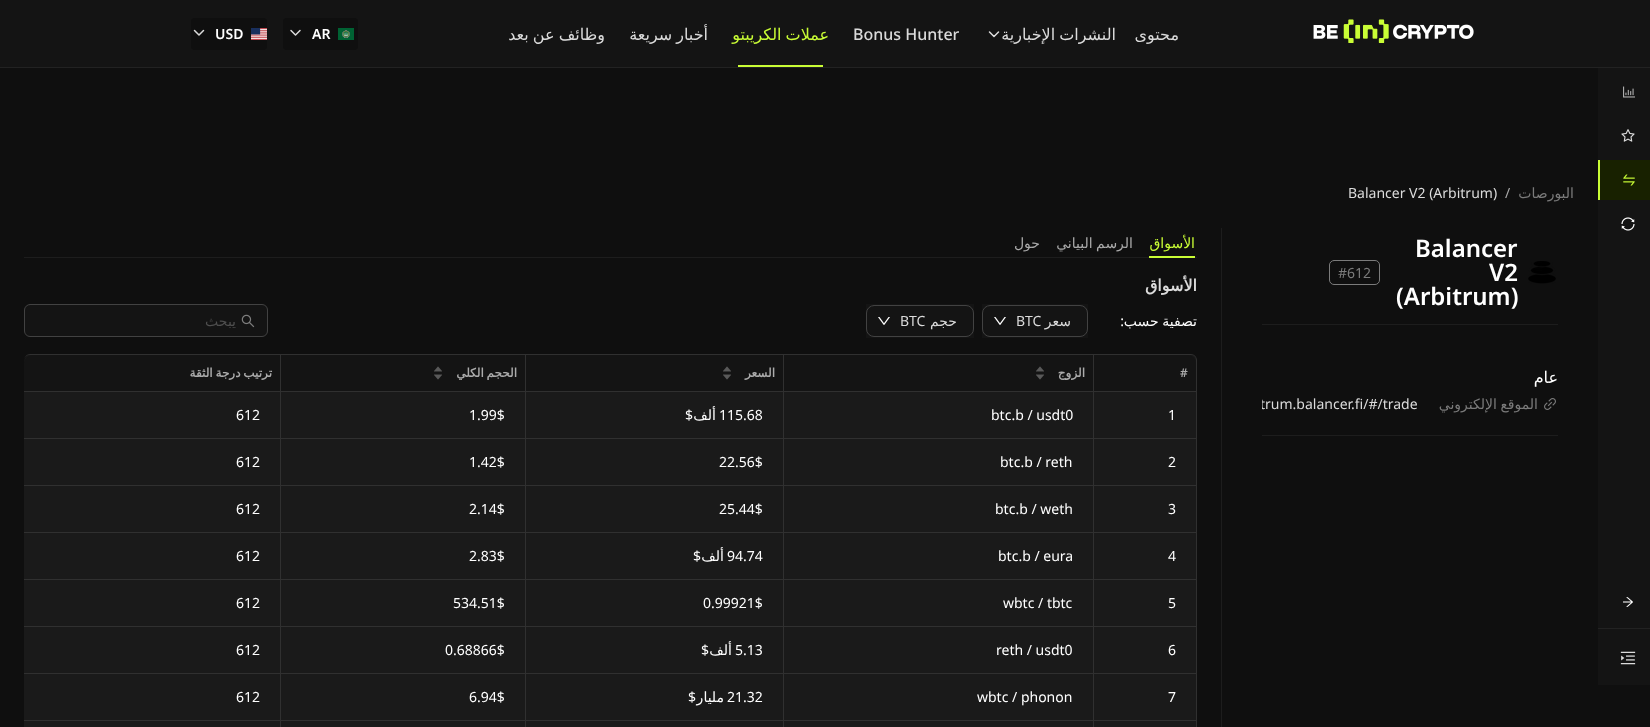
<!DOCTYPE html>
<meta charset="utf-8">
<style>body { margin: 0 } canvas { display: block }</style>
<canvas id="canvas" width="1650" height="727"></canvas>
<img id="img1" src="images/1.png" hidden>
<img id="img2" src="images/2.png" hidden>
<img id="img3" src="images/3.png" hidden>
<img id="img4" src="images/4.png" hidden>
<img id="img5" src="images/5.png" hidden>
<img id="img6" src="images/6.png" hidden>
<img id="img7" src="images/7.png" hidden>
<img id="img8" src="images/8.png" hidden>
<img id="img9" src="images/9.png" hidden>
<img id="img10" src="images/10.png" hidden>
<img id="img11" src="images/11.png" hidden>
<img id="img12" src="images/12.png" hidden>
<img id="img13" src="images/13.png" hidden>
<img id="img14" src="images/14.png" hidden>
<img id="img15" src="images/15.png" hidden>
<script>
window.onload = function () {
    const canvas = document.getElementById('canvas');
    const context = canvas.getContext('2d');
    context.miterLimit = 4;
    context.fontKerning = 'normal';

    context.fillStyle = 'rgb(15, 15, 15)';
    context.fillRect(0, 0, 1650, 727);
    context.fillStyle = 'rgb(20, 20, 20)';
    context.fillRect(0, 0, 1650, 67);
    context.fillStyle = 'rgb(34, 34, 34)';
    context.fillRect(0, 67, 1650, 1);
    context.fillStyle = 'rgb(15, 15, 15)';
    context.beginPath();
    context.roundRect(191, 18, 76, 32, 4);
    context.fill();
    context.beginPath();
    context.moveTo(203.5, 30.5);
    context.lineTo(199, 35);
    context.lineTo(194.5, 30.5);
    context.strokeStyle = 'rgb(219, 219, 219)';
    context.lineWidth = 1.5;
    context.lineCap = 'round';
    context.lineJoin = 'round';
    context.stroke();
    context.drawImage(document.getElementById('img1'), 251, 28, 16, 12);
    context.beginPath();
    context.roundRect(283, 18, 75, 32, 4);
    context.fill();
    context.beginPath();
    context.moveTo(300, 30.5);
    context.lineTo(295.5, 35);
    context.lineTo(291, 30.5);
    context.stroke();
    context.drawImage(document.getElementById('img2'), 338, 28, 16, 12);
    context.fillStyle = 'rgb(201, 253, 53)';
    context.fillRect(738, 65, 85, 2);
    context.beginPath();
    context.moveTo(998.5, 32);
    context.lineTo(994, 36.5);
    context.lineTo(989.5, 32);
    context.strokeStyle = 'rgb(220, 220, 220)';
    context.stroke();
    context.drawImage(document.getElementById('img3'), 1313, 19, 161, 24);
    context.fillStyle = 'rgb(29, 29, 29)';
    context.fillRect(1221, 228, 1, 499);
    context.fillRect(24, 257, 1173, 1);
    context.fillStyle = 'rgb(201, 253, 53)';
    context.fillRect(1149, 256, 46, 2);
    context.fillStyle = 'rgb(20, 20, 20)';
    context.beginPath();
    context.roundRect(24.5, 304.5, 243, 32, 5.5);
    context.fill();
    context.strokeStyle = 'rgb(66, 66, 66)';
    context.lineWidth = 1;
    context.lineJoin = 'miter';
    context.stroke();
    context.drawImage(document.getElementById('img4'), 241, 314, 14, 14);
    context.fillRect(866, 304, 108, 34);
    context.beginPath();
    context.roundRect(866.5, 305.5, 107, 31, 7.5);
    context.stroke();
    context.drawImage(document.getElementById('img5'), 878, 317, 12, 8);
    context.fillRect(982, 304, 106, 34);
    context.beginPath();
    context.roundRect(982.5, 305.5, 105, 31, 7.5);
    context.stroke();
    context.drawImage(document.getElementById('img5'), 994, 317, 12, 8);
    context.fillStyle = 'rgb(26, 26, 26)';
    context.beginPath();
    context.moveTo(32, 354);
    context.lineTo(1189, 354);
    context.bezierCurveTo(1193.5, 354, 1197, 357.5, 1197, 362);
    context.lineTo(1197, 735);
    context.lineTo(24, 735);
    context.lineTo(24, 362);
    context.bezierCurveTo(24, 357.5, 27.5, 354, 32, 354);
    context.closePath();
    context.fill();
    context.fillStyle = 'rgb(48, 48, 48)';
    context.beginPath();
    context.moveTo(30, 354);
    context.lineTo(1191, 354);
    context.bezierCurveTo(1194, 354, 1197, 357, 1197, 360);
    context.lineTo(1197, 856);
    context.bezierCurveTo(1197, 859, 1194, 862, 1191, 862);
    context.lineTo(30, 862);
    context.bezierCurveTo(27, 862, 24, 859, 24, 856);
    context.lineTo(24, 360);
    context.bezierCurveTo(24, 357, 27, 354, 30, 354);
    context.closePath();
    context.moveTo(30, 355);
    context.lineTo(1191, 355);
    context.bezierCurveTo(1194, 355, 1196, 357, 1196, 360);
    context.lineTo(1196, 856);
    context.bezierCurveTo(1196, 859, 1194, 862, 1191, 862);
    context.lineTo(30, 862);
    context.bezierCurveTo(27, 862, 24, 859, 24, 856);
    context.lineTo(24, 360);
    context.bezierCurveTo(24, 357, 27, 355, 30, 355);
    context.closePath();
    context.fill('evenodd');
    context.fillStyle = 'rgb(20, 20, 20)';
    context.beginPath();
    context.moveTo(32, 355);
    context.bezierCurveTo(28, 355, 24, 359, 24, 363);
    context.lineTo(24, 392);
    context.lineTo(280, 392);
    context.lineTo(280, 355);
    context.closePath();
    context.fill();
    context.fillStyle = 'rgb(48, 48, 48)';
    context.fillRect(24, 391, 256, 1);
    context.fillStyle = 'rgb(20, 20, 20)';
    context.fillRect(281, 355, 244, 36);
    context.beginPath();
    context.roundRect(1093, 355, 103, 37, [0, 8, 0, 0]);
    context.fill();
    context.fillStyle = 'rgb(48, 48, 48)';
    context.fillRect(280, 391, 916, 1);
    context.fillRect(280, 355, 1, 37);
    context.drawImage(document.getElementById('img6'), 434, 366, 8, 6);
    context.drawImage(document.getElementById('img7'), 434, 374, 8, 6);
    context.fillStyle = 'rgb(20, 20, 20)';
    context.fillRect(526, 355, 257, 36);
    context.fillStyle = 'rgb(48, 48, 48)';
    context.fillRect(525, 355, 1, 37);
    context.drawImage(document.getElementById('img6'), 723, 366, 8, 6);
    context.drawImage(document.getElementById('img7'), 723, 374, 8, 6);
    context.fillStyle = 'rgb(20, 20, 20)';
    context.fillRect(784, 355, 309, 36);
    context.fillStyle = 'rgb(48, 48, 48)';
    context.fillRect(783, 355, 1, 37);
    context.drawImage(document.getElementById('img6'), 1036, 366, 8, 6);
    context.drawImage(document.getElementById('img7'), 1036, 374, 8, 6);
    context.fillRect(1093, 355, 1, 37);
    context.fillRect(24, 438, 1172, 1);
    context.fillRect(280, 392, 1, 47);
    context.fillRect(525, 392, 1, 47);
    context.fillRect(783, 392, 1, 47);
    context.fillRect(1093, 392, 1, 47);
    context.fillRect(24, 485, 1172, 1);
    context.fillRect(280, 439, 1, 47);
    context.fillRect(525, 439, 1, 47);
    context.fillRect(783, 439, 1, 47);
    context.fillRect(1093, 439, 1, 47);
    context.fillRect(24, 532, 1172, 1);
    context.fillRect(280, 486, 1, 47);
    context.fillRect(525, 486, 1, 47);
    context.fillRect(783, 486, 1, 47);
    context.fillRect(1093, 486, 1, 47);
    context.fillRect(24, 579, 1172, 1);
    context.fillRect(280, 533, 1, 47);
    context.fillRect(525, 533, 1, 47);
    context.fillRect(783, 533, 1, 47);
    context.fillRect(1093, 533, 1, 47);
    context.fillRect(24, 626, 1172, 1);
    context.fillRect(280, 580, 1, 47);
    context.fillRect(525, 580, 1, 47);
    context.fillRect(783, 580, 1, 47);
    context.fillRect(1093, 580, 1, 47);
    context.fillRect(24, 673, 1172, 1);
    context.fillRect(280, 627, 1, 47);
    context.fillRect(525, 627, 1, 47);
    context.fillRect(783, 627, 1, 47);
    context.fillRect(1093, 627, 1, 47);
    context.fillRect(24, 720, 1172, 1);
    context.fillRect(280, 674, 1, 53);
    context.fillRect(525, 674, 1, 53);
    context.fillRect(783, 674, 1, 53);
    context.fillRect(1093, 674, 1, 53);
    context.beginPath();
    context.roundRect(1329.5, 260.5, 50, 24, 4.5);
    context.strokeStyle = 'rgb(123, 123, 123)';
    context.stroke();
    context.drawImage(document.getElementById('img8'), 1528, 261, 28, 23);
    context.fillStyle = 'rgb(29, 29, 29)';
    context.fillRect(1262, 324, 296, 1);
    context.drawImage(document.getElementById('img9'), 1544, 398, 12, 12);
    context.fillRect(1262, 435, 296, 1);
    context.fillStyle = 'rgb(20, 20, 20)';
    context.fillRect(1598, 68, 52, 617);
    context.drawImage(document.getElementById('img10'), 1623, 86, 12, 12);
    context.drawImage(document.getElementById('img11'), 1621, 129, 14, 13);
    context.fillStyle = 'rgb(24, 33, 0)';
    context.fillRect(1600, 160, 50, 40);
    context.fillStyle = 'rgb(201, 253, 53)';
    context.fillRect(1598, 160, 2, 40);
    context.drawImage(document.getElementById('img12'), 1623, 174, 12, 12);
    context.drawImage(document.getElementById('img13'), 1621, 217, 14, 14);
    context.drawImage(document.getElementById('img14'), 1623, 597, 10, 10);
    context.fillStyle = 'rgb(34, 34, 34)';
    context.fillRect(1598, 628, 52, 1);
    context.drawImage(document.getElementById('img15'), 1620, 651, 16, 14);
    context.font = '600 14px Noto Sans';
    context.fillStyle = 'rgb(255, 255, 255)';
    context.fillText('USD', 215, 39);
    context.fillText('AR', 312, 39);
    context.wordSpacing = '-1px';
    context.direction = 'rtl';
    context.font = '16px DejaVu Sans';
    context.fillStyle = 'rgb(219, 219, 219)';
    context.fillText('وظائف عن بعد', 605, 40);
    context.fillText('أخبار سريعة', 708, 40);
    context.fillStyle = 'rgb(201, 253, 53)';
    context.fillText('عملات الكريبتو', 829, 40);
    context.wordSpacing = '0px';
    context.direction = 'ltr';
    context.font = '500 16px Noto Sans';
    context.fillStyle = 'rgb(219, 219, 219)';
    context.fillText('Bonus Hunter', 853, 40);
    context.wordSpacing = '-1px';
    context.direction = 'rtl';
    context.font = '16px DejaVu Sans';
    context.fillText('النشرات الإخبارية', 1116, 40);
    context.wordSpacing = '0px';
    context.fillText('محتوى', 1179, 40);
    context.direction = 'ltr';
    context.font = '14px Noto Sans';
    context.fillText('Balancer V2 (Arbitrum)', 1348, 198);
    context.fillStyle = 'rgb(171, 171, 171)';
    context.fillText('/', 1505, 198);
    context.direction = 'rtl';
    context.font = '14px DejaVu Sans';
    context.fillStyle = 'rgb(123, 123, 123)';
    context.fillText('البورصات', 1574, 198);
    context.fillStyle = 'rgb(171, 171, 171)';
    context.fillText('حول', 1040, 248);
    context.wordSpacing = '-1px';
    context.fillText('الرسم البياني', 1133, 248);
    context.wordSpacing = '0px';
    context.fillStyle = 'rgb(201, 253, 53)';
    context.fillText('الأسواق', 1195, 248);
    context.font = 'bold 16px DejaVu Sans';
    context.fillStyle = 'rgb(219, 219, 219)';
    context.fillText('الأسواق', 1197, 291);
    context.font = '14px DejaVu Sans';
    context.fillStyle = 'rgb(79, 79, 79)';
    context.fillText('يبحث', 236, 326);
    context.direction = 'ltr';
    context.font = '14px Noto Sans';
    context.fillStyle = 'rgb(219, 219, 219)';
    context.fillText('BTC', 900, 326);
    context.direction = 'rtl';
    context.font = '14px DejaVu Sans';
    context.fillText('حجم', 957, 326);
    context.direction = 'ltr';
    context.font = '14px Noto Sans';
    context.fillText('BTC', 1016, 326);
    context.direction = 'rtl';
    context.font = '14px DejaVu Sans';
    context.fillText('سعر', 1071, 326);
    context.font = '14px Noto Sans';
    context.fillStyle = 'rgb(255, 255, 255)';
    context.fillText(':', 1124, 326);
    context.wordSpacing = '-1px';
    context.font = '14px DejaVu Sans';
    context.fillText('تصفية حسب', 1197, 326);
    context.font = 'bold 12px DejaVu Sans';
    context.fillStyle = 'rgb(171, 171, 171)';
    context.fillText('ترتيب درجة الثقة', 272, 377);
    context.fillText('الحجم الكلي', 517, 377);
    context.wordSpacing = '0px';
    context.fillText('السعر', 775, 377);
    context.fillText('الزوج', 1085, 377);
    context.direction = 'ltr';
    context.font = '600 12px Noto Sans';
    context.fillText('#', 1180, 377);
    context.font = '14px Noto Sans';
    context.fillStyle = 'rgb(255, 255, 255)';
    context.fillText('612', 236, 420);
    context.fillText('1.99$', 469, 420);
    context.direction = 'rtl';
    context.fillText('$', 693, 420);
    context.font = '14px DejaVu Sans';
    context.fillText('ألف', 716, 420);
    context.direction = 'ltr';
    context.font = '14px Noto Sans';
    context.fillText('115.68', 719, 420);
    context.fillText('btc.b / usdt0', 991, 420);
    context.fillText('1', 1168, 420);
    context.fillText('612', 236, 467);
    context.fillText('1.42$', 469, 467);
    context.fillText('22.56$', 719, 467);
    context.fillText('btc.b / reth', 1000, 467);
    context.fillText('2', 1168, 467);
    context.fillText('612', 236, 514);
    context.fillText('2.14$', 469, 514);
    context.fillText('25.44$', 719, 514);
    context.fillText('btc.b / weth', 995, 514);
    context.fillText('3', 1168, 514);
    context.fillText('612', 236, 561);
    context.fillText('2.83$', 469, 561);
    context.direction = 'rtl';
    context.fillText('$', 701, 561);
    context.font = '14px DejaVu Sans';
    context.fillText('ألف', 724, 561);
    context.direction = 'ltr';
    context.font = '14px Noto Sans';
    context.fillText('94.74', 727, 561);
    context.fillText('btc.b / eura', 998, 561);
    context.fillText('4', 1168, 561);
    context.fillText('612', 236, 608);
    context.fillText('534.51$', 453, 608);
    context.fillText('0.99921$', 703, 608);
    context.fillText('wbtc / tbtc', 1003, 608);
    context.fillText('5', 1168, 608);
    context.fillText('612', 236, 655);
    context.fillText('0.68866$', 445, 655);
    context.direction = 'rtl';
    context.fillText('$', 709, 655);
    context.font = '14px DejaVu Sans';
    context.fillText('ألف', 732, 655);
    context.direction = 'ltr';
    context.font = '14px Noto Sans';
    context.fillText('5.13', 735, 655);
    context.fillText('reth / usdt0', 996, 655);
    context.fillText('6', 1168, 655);
    context.fillText('612', 236, 702);
    context.fillText('6.94$', 469, 702);
    context.direction = 'rtl';
    context.fillText('$', 696, 702);
    context.font = '14px DejaVu Sans';
    context.fillText('مليار', 724, 702);
    context.direction = 'ltr';
    context.font = '14px Noto Sans';
    context.fillText('21.32', 727, 702);
    context.fillText('wbtc / phonon', 977, 702);
    context.fillText('7', 1168, 702);
    context.fillStyle = 'rgb(123, 123, 123)';
    context.fillText('#612', 1338, 278);
    context.font = '600 24px Noto Sans';
    context.fillStyle = 'rgb(255, 255, 255)';
    context.fillText('Balancer', 1415, 257);
    context.fillText('V2', 1489, 281);
    context.fillText('(Arbitrum)', 1396, 305);
    context.direction = 'rtl';
    context.font = '16px DejaVu Sans';
    context.fillText('عام', 1558, 383);
    context.save();
    context.beginPath();
    context.rect(1262, 393, 156, 22);
    context.clip();
    context.direction = 'ltr';
    context.font = '14px Noto Sans';
    context.fillStyle = 'rgb(219, 219, 219)';
    context.fillText('trum.balancer.fi/#/trade', 1260, 409);
    context.restore();
    context.wordSpacing = '-1px';
    context.font = '14px DejaVu Sans';
    context.fillStyle = 'rgb(123, 123, 123)';
    context.fillText('الموقع الإلكتروني', 1538, 409);
};
</script>
